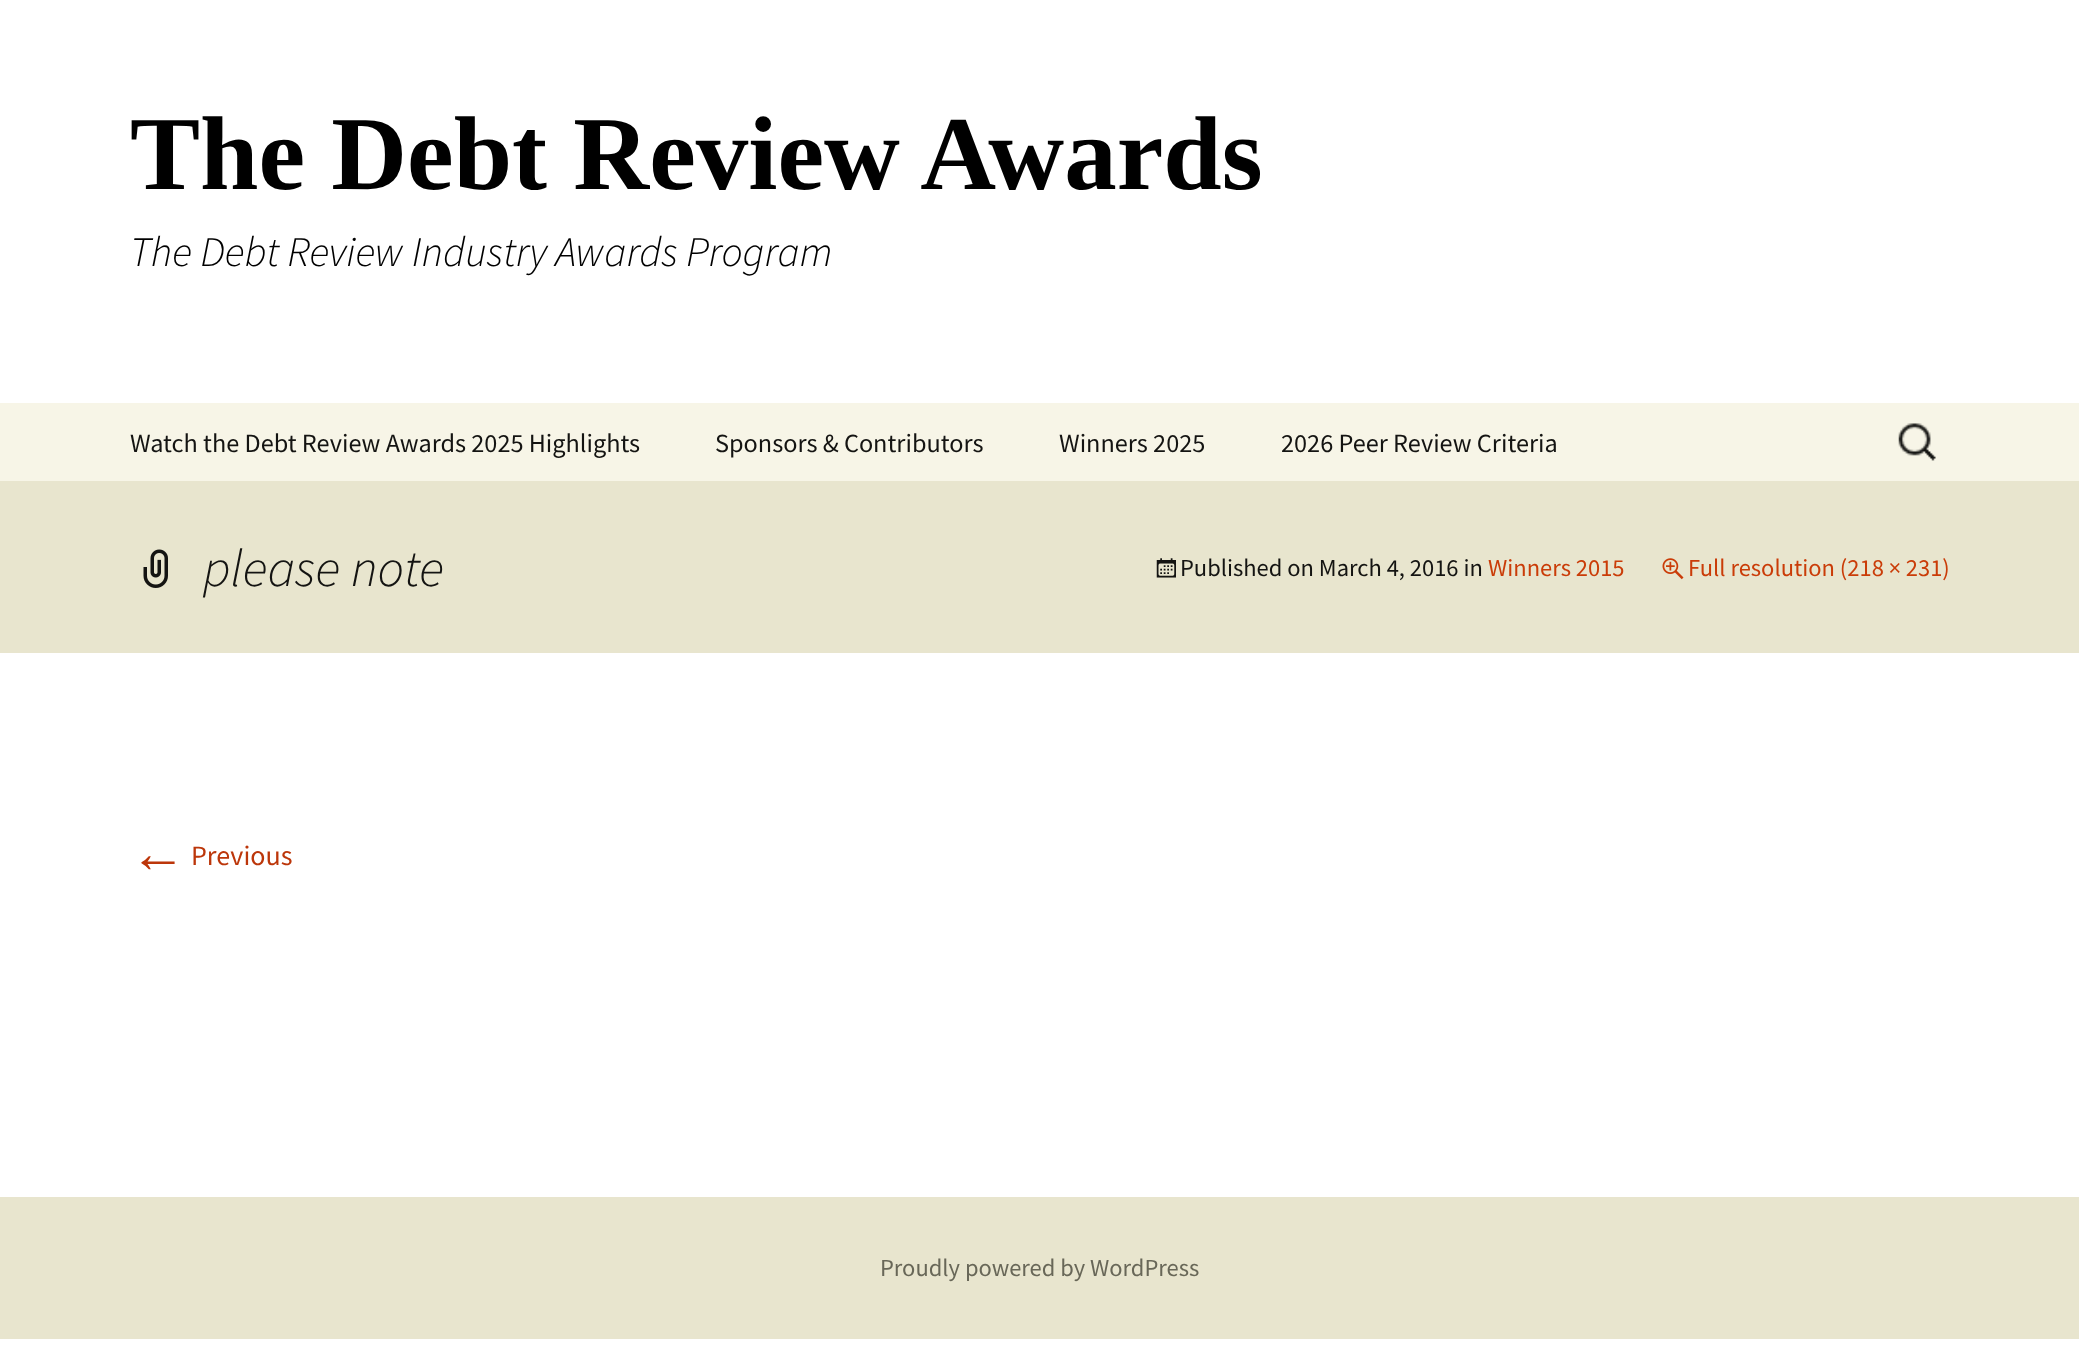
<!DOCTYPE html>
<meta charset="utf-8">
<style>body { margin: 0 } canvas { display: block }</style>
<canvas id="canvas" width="2079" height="1363"></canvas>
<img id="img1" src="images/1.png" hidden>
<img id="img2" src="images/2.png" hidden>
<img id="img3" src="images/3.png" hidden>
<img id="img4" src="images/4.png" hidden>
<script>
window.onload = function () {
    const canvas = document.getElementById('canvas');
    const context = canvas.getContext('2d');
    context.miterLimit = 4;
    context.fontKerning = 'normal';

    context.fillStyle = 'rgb(255, 255, 255)';
    context.fillRect(0, 0, 2079, 1363);
    context.fillStyle = 'rgb(247, 245, 231)';
    context.fillRect(0, 403, 2079, 78);
    context.drawImage(document.getElementById('img1'), 1898, 423, 38, 38);
    context.fillStyle = 'rgb(232, 229, 206)';
    context.fillRect(0, 481, 2079, 172);
    context.drawImage(document.getElementById('img2'), 143, 549, 25, 39);
    context.drawImage(document.getElementById('img3'), 1156, 558, 20, 20);
    context.drawImage(document.getElementById('img4'), 1662, 558, 22, 22);
    context.fillRect(0, 1197, 2079, 142);
    context.font = 'bold 105px Liberation Serif';
    context.fillStyle = 'rgb(0, 0, 0)';
    context.fillText('The Debt Review Awards', 130, 189);
    context.font = 'italic 300 42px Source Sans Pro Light';
    context.fillText('The Debt Review Industry Awards Program', 130, 266);
    context.font = '26.25px Source Sans Pro';
    context.fillStyle = 'rgb(20, 20, 18)';
    context.fillText('Watch the Debt Review Awards 2025 Highlights', 130, 452);
    context.fillText('Sponsors & Contributors', 715, 452);
    context.fillText('Winners 2025', 1059, 452);
    context.fillText('2026 Peer Review Criteria', 1281, 452);
    context.font = 'italic 300 52.5px Source Sans Pro Light';
    context.fillText('please note', 203, 586);
    context.font = '24.5px Source Sans Pro';
    context.fillText('Published on March 4, 2016 in', 1180, 576);
    context.fillStyle = 'rgb(202, 60, 8)';
    context.fillText('Winners 2015', 1488, 576);
    context.fillText('Full resolution (218 × 231)', 1688, 576);
    context.font = '56px Liberation Sans';
    context.fillStyle = 'rgb(188, 54, 10)';
    context.fillText('←', 130, 872);
    context.font = '28px Source Sans Pro';
    context.fillText('Previous', 191, 865);
    context.font = '24.5px Source Sans Pro';
    context.fillStyle = 'rgb(104, 103, 88)';
    context.fillText('Proudly powered by WordPress', 880, 1276);
};
</script>
